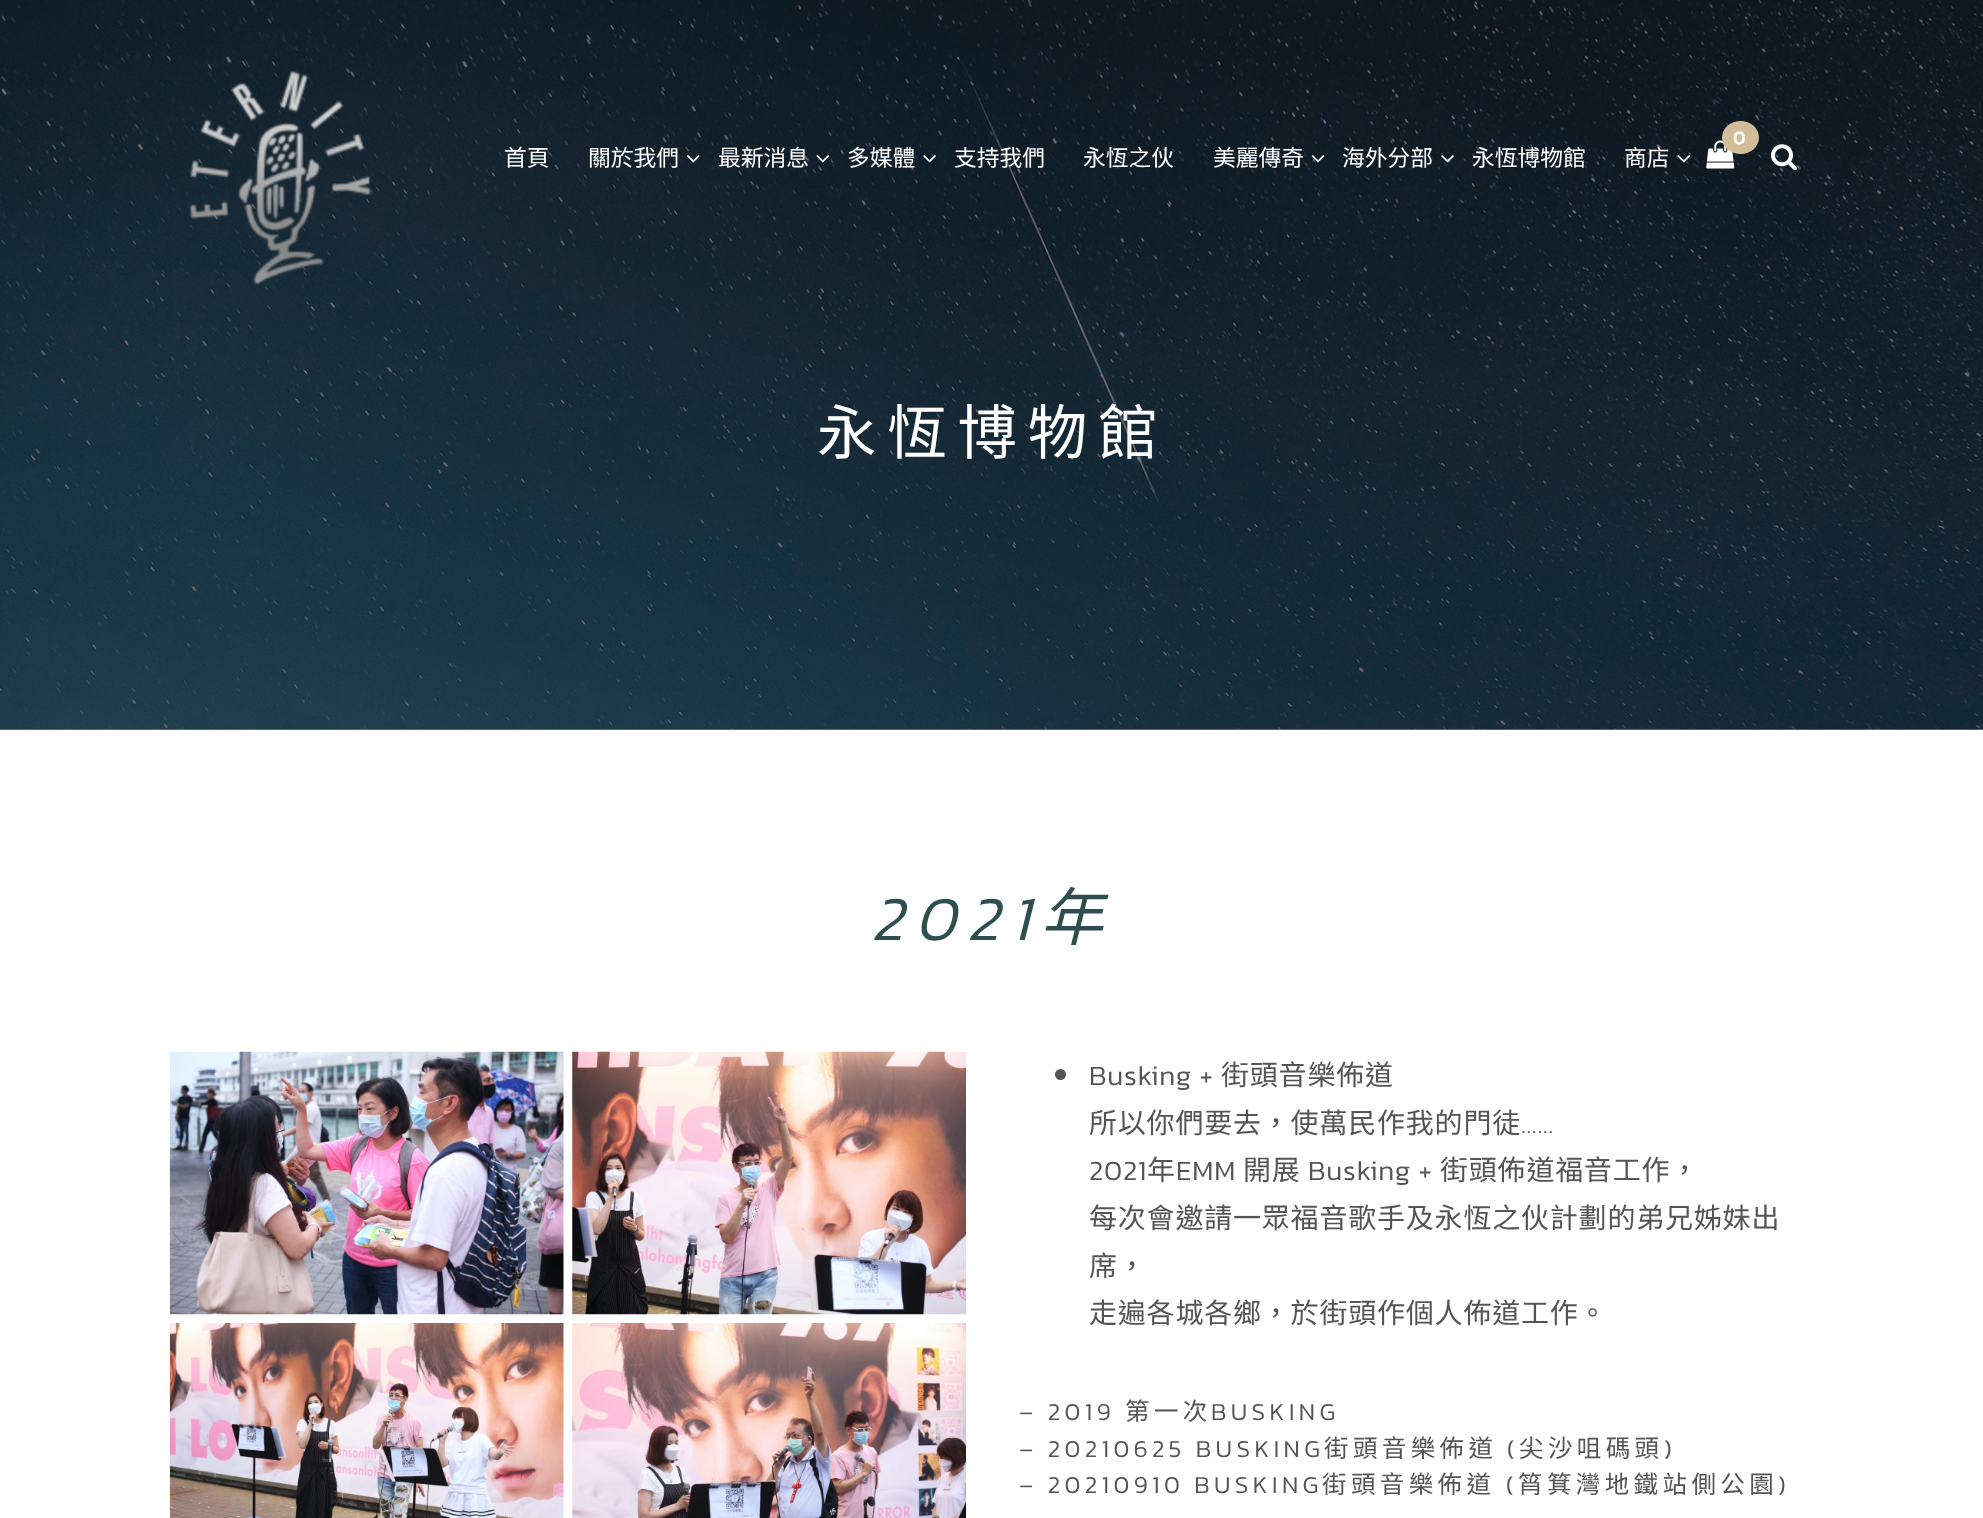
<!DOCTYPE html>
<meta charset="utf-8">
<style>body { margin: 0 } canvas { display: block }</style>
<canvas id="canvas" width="1983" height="1518"></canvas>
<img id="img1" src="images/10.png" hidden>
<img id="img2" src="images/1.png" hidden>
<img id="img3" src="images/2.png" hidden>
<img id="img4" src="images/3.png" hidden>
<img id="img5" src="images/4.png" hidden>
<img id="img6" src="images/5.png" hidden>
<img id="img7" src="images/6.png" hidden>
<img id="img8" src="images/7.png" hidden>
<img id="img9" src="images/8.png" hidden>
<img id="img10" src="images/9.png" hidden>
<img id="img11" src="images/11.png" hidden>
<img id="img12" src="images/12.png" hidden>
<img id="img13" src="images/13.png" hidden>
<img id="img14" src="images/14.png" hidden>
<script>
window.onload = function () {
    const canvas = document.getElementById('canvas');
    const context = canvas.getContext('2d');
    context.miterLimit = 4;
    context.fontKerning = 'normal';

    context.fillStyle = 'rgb(255, 255, 255)';
    context.fillRect(0, 0, 1983, 1518);
    context.drawImage(document.getElementById('img1'), 0, 0, 1983, 730);
    context.drawImage(document.getElementById('img2'), 189, 70, 183, 215);
    context.drawImage(document.getElementById('img3'), 1706, 140, 29, 29);
    context.fillStyle = 'rgb(211, 189, 152)';
    context.beginPath();
    context.ellipse(1740.5, 137.5, 18.5, 16.5, 0, 0, 2 * Math.PI);
    context.fill();
    context.drawImage(document.getElementById('img4'), 1771, 144, 26, 27);
    context.drawImage(document.getElementById('img5'), 687, 155, 13, 8);
    context.drawImage(document.getElementById('img6'), 816, 155, 14, 8);
    context.drawImage(document.getElementById('img7'), 923, 155, 13, 8);
    context.drawImage(document.getElementById('img8'), 1311, 155, 14, 8);
    context.drawImage(document.getElementById('img9'), 1441, 155, 13, 8);
    context.drawImage(document.getElementById('img10'), 1677, 155, 14, 8);
    context.drawImage(document.getElementById('img11'), 169, 1051, 395, 264);
    context.drawImage(document.getElementById('img12'), 572, 1051, 394, 264);
    context.drawImage(document.getElementById('img13'), 169, 1323, 395, 195);
    context.drawImage(document.getElementById('img14'), 572, 1323, 394, 195);
    context.fillStyle = 'rgb(85, 85, 85)';
    context.beginPath();
    context.arc(1060.5, 1074.5, 5.5, 0, 2 * Math.PI);
    context.fill();
    context.letterSpacing = '2px';
    context.font = '500 19px Kanit';
    context.fillStyle = 'rgb(255, 255, 255)';
    context.fillText('0', 1733, 144);
    context.letterSpacing = '0px';
    context.font = '22.75px Noto Sans CJK HK';
    context.fillText('首頁', 504, 166);
    context.fillText('關於我們', 588, 166);
    context.fillText('最新消息', 718, 166);
    context.fillText('多媒體', 847, 166);
    context.fillText('支持我們', 954, 166);
    context.fillText('永恆之伙', 1083, 166);
    context.fillText('美麗傳奇', 1213, 166);
    context.fillText('海外分部', 1342, 166);
    context.fillText('永恆博物館', 1472, 166);
    context.fillText('商店', 1624, 166);
    context.letterSpacing = '10.75px';
    context.font = '59.5px Noto Sans CJK HK';
    context.fillText('永恆博物館', 817, 454);
    context.letterSpacing = '11.5px';
    context.font = 'italic 300 63px Kanit';
    context.fillStyle = 'rgb(47, 79, 79)';
    context.fillText('2021', 871, 940);
    context.font = 'italic 63px Noto Sans CJK HK';
    context.fillText('年', 1040, 940);
    context.letterSpacing = '0.8px';
    context.font = '300 28px Kanit';
    context.fillStyle = 'rgb(85, 85, 85)';
    context.fillText('Busking +', 1089, 1085);
    context.font = '28px Noto Sans CJK HK';
    context.fillText('街頭音樂佈道', 1221, 1085);
    context.fillText('所以你們要去，使萬民作我的門徒', 1089, 1133);
    context.font = '300 28px Kanit';
    context.fillText('……', 1521, 1133);
    context.fillText('2021', 1089, 1180);
    context.font = '28px Noto Sans CJK HK';
    context.fillText('年', 1147, 1180);
    context.font = '300 28px Kanit';
    context.fillText('EMM', 1176, 1180);
    context.font = '28px Noto Sans CJK HK';
    context.fillText('開展', 1243, 1180);
    context.font = '300 28px Kanit';
    context.fillText('Busking +', 1308, 1180);
    context.font = '28px Noto Sans CJK HK';
    context.fillText('街頭佈道福音工作，', 1440, 1180);
    context.fillText('每次會邀請一眾福音歌手及永恆之伙計劃的弟兄姊妹出', 1089, 1228);
    context.fillText('席，', 1089, 1276);
    context.fillText('走遍各城各鄉，於街頭作個人佈道工作。', 1089, 1323);
    context.letterSpacing = '4.4px';
    context.font = '300 24.5px Kanit';
    context.fillText('– 2019', 1019, 1420);
    context.font = '24.5px Noto Sans CJK HK';
    context.fillText('第一次', 1125, 1420);
    context.font = '300 24.5px Kanit';
    context.fillText('BUSKING', 1211, 1420);
    context.fillText('– 20210625 BUSKING', 1019, 1457);
    context.font = '24.5px Noto Sans CJK HK';
    context.fillText('街頭音樂佈道', 1324, 1457);
    context.font = '300 24.5px Kanit';
    context.fillText('(', 1507, 1457);
    context.font = '24.5px Noto Sans CJK HK';
    context.fillText('尖沙咀碼頭', 1519, 1457);
    context.font = '300 24.5px Kanit';
    context.fillText(')', 1664, 1457);
    context.fillText('– 20210910 BUSKING', 1019, 1493);
    context.font = '24.5px Noto Sans CJK HK';
    context.fillText('街頭音樂佈道', 1322, 1493);
    context.font = '300 24.5px Kanit';
    context.fillText('(', 1506, 1493);
    context.font = '24.5px Noto Sans CJK HK';
    context.fillText('筲箕灣地鐵站側公園', 1518, 1493);
    context.font = '300 24.5px Kanit';
    context.fillText(')', 1778, 1493);
};
</script>
